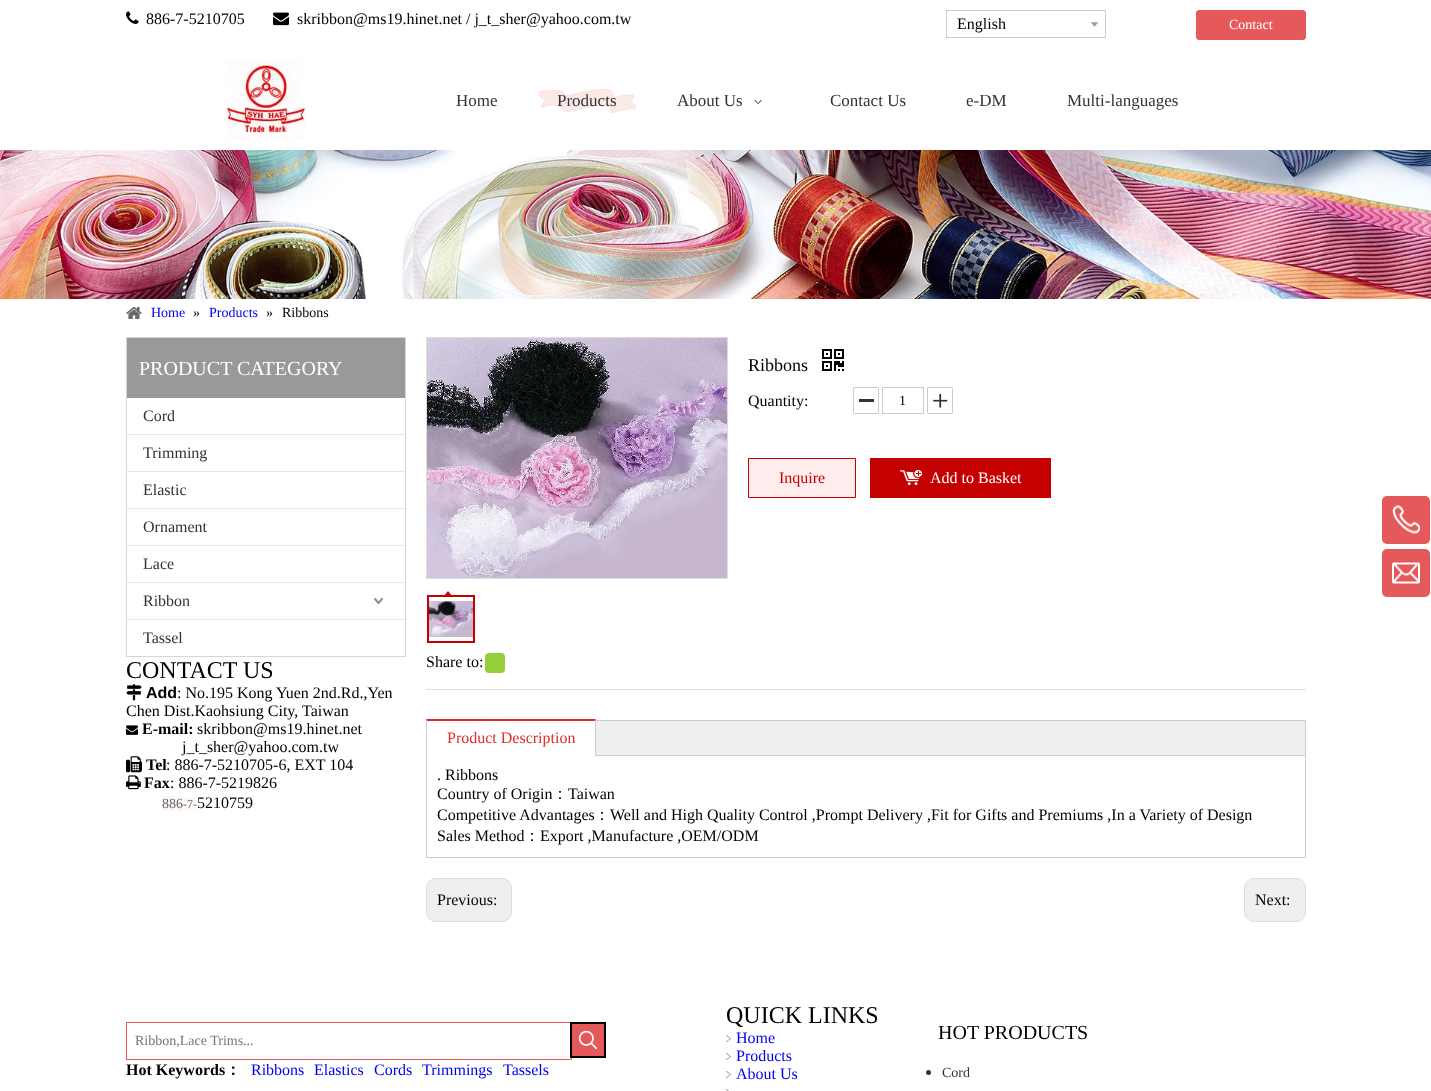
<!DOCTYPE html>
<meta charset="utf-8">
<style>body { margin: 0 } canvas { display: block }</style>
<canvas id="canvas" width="1431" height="1091"></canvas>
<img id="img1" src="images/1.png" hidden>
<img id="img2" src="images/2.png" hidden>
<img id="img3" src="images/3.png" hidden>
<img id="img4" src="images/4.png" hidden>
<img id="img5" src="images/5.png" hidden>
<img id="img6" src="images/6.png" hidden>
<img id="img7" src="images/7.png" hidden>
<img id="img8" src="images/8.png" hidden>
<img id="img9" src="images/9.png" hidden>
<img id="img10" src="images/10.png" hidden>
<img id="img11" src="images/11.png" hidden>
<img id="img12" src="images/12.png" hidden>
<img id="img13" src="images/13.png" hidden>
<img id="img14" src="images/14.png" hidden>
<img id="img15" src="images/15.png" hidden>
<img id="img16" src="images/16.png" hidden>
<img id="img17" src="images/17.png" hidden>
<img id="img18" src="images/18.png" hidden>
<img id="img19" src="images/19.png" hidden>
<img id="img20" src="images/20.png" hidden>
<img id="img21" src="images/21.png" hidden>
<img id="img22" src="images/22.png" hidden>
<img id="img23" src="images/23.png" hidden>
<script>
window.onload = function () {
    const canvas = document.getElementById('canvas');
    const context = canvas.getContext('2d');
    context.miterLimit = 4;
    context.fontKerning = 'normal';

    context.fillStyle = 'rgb(255, 255, 255)';
    context.fillRect(0, 0, 1431, 1091);
    context.drawImage(document.getElementById('img1'), 126, 11, 13, 13);
    context.drawImage(document.getElementById('img2'), 273, 12, 16, 14);
    context.strokeStyle = 'rgb(204, 204, 204)';
    context.strokeRect(946.5, 10.5, 159, 27);
    context.drawImage(document.getElementById('img3'), 1091, 22, 7, 5);
    context.fillStyle = 'rgb(230, 89, 91)';
    context.beginPath();
    context.roundRect(1196.5, 10.5, 109, 29, 2.5);
    context.fill();
    context.strokeStyle = 'rgb(230, 89, 91)';
    context.stroke();
    context.drawImage(document.getElementById('img4'), 226, 60, 80, 80);
    context.drawImage(document.getElementById('img5'), 538, 89, 98, 24);
    context.drawImage(document.getElementById('img6'), 754, 100, 8, 4);
    context.drawImage(document.getElementById('img7'), 0, 150, 1431, 149);
    context.drawImage(document.getElementById('img8'), 126, 307, 16, 12);
    context.strokeStyle = 'rgb(214, 214, 214)';
    context.strokeRect(126.5, 337.5, 279, 319);
    context.fillStyle = 'rgb(153, 153, 153)';
    context.fillRect(127, 338, 278, 60);
    context.fillStyle = 'rgb(231, 231, 231)';
    context.fillRect(127, 434, 278, 1);
    context.fillRect(127, 471, 278, 1);
    context.fillRect(127, 508, 278, 1);
    context.fillRect(127, 545, 278, 1);
    context.fillRect(127, 582, 278, 1);
    context.drawImage(document.getElementById('img9'), 374, 598, 9, 6);
    context.fillRect(127, 619, 278, 1);
    context.drawImage(document.getElementById('img10'), 126, 684, 16, 17);
    context.drawImage(document.getElementById('img11'), 126, 725, 12, 10);
    context.drawImage(document.getElementById('img12'), 126, 756, 16, 17);
    context.drawImage(document.getElementById('img13'), 126, 775, 15, 15);
    context.fillStyle = 'rgb(254, 247, 246)';
    context.fillRect(162, 796, 21, 15);
    context.fillRect(183, 797, 14, 14);
    context.drawImage(document.getElementById('img14'), 822, 349, 22, 22);
    context.fillStyle = 'rgb(51, 51, 51)';
    context.fillRect(859, 399, 15, 3);
    context.beginPath();
    context.roundRect(853.5, 387.5, 25, 26, 0.5);
    context.strokeStyle = 'rgb(204, 204, 204)';
    context.stroke();
    context.strokeRect(882.5, 387.5, 41, 26);
    context.drawImage(document.getElementById('img15'), 933, 393, 15, 15);
    context.beginPath();
    context.roundRect(927.5, 387.5, 25, 26, 0.5);
    context.stroke();
    context.fillStyle = 'rgb(255, 237, 237)';
    context.beginPath();
    context.rect(748.5, 458.5, 107, 39);
    context.fill();
    context.strokeStyle = 'rgb(196, 0, 0)';
    context.stroke();
    context.fillStyle = 'rgb(196, 0, 0)';
    context.fillRect(870, 458, 181, 40);
    context.drawImage(document.getElementById('img16'), 900, 470, 22, 15);
    context.strokeStyle = 'rgb(221, 221, 221)';
    context.strokeRect(426.5, 337.5, 301, 241);
    context.drawImage(document.getElementById('img17'), 427, 338, 300, 240);
    context.strokeStyle = 'rgb(196, 0, 0)';
    context.lineWidth = 2;
    context.strokeRect(428, 596, 46, 46);
    context.beginPath();
    context.moveTo(453, 597);
    context.lineTo(443, 597);
    context.lineTo(448, 591);
    context.closePath();
    context.fill();
    context.drawImage(document.getElementById('img18'), 429, 601, 44, 36);
    context.fillStyle = 'rgb(149, 208, 58)';
    context.beginPath();
    context.roundRect(485, 653, 20, 20, 4);
    context.fill();
    context.fillStyle = 'rgb(223, 223, 223)';
    context.fillRect(426, 689, 880, 1);
    context.strokeStyle = 'rgb(204, 204, 204)';
    context.lineWidth = 1;
    context.strokeRect(426.5, 720.5, 879, 137);
    context.fillStyle = 'rgb(239, 239, 239)';
    context.fillRect(596, 721, 709, 34);
    context.fillStyle = 'rgb(204, 204, 204)';
    context.fillRect(596, 755, 709, 1);
    context.fillStyle = 'rgb(255, 255, 255)';
    context.fillRect(426, 720, 170, 36);
    context.fillStyle = 'rgb(221, 45, 37)';
    context.beginPath();
    context.moveTo(426, 719);
    context.lineTo(596, 719);
    context.lineTo(595, 721);
    context.lineTo(427, 721);
    context.closePath();
    context.fill();
    context.fillStyle = 'rgb(204, 204, 204)';
    context.beginPath();
    context.moveTo(596, 719);
    context.lineTo(596, 756);
    context.lineTo(595, 756);
    context.lineTo(595, 721);
    context.closePath();
    context.fill();
    context.beginPath();
    context.moveTo(426, 756);
    context.lineTo(426, 719);
    context.lineTo(427, 721);
    context.lineTo(427, 756);
    context.closePath();
    context.fill();
    context.fillStyle = 'rgb(239, 239, 239)';
    context.beginPath();
    context.roundRect(426.5, 878.5, 85, 43, 9.5);
    context.fill();
    context.strokeStyle = 'rgb(221, 221, 221)';
    context.stroke();
    context.beginPath();
    context.roundRect(1244.5, 878.5, 61, 43, 9.5);
    context.fill();
    context.stroke();
    context.fillStyle = 'rgb(230, 89, 91)';
    context.beginPath();
    context.roundRect(1382, 496, 48, 48, 5);
    context.fill();
    context.drawImage(document.getElementById('img19'), 1392, 505, 28, 29);
    context.beginPath();
    context.roundRect(1382, 549, 48, 48, 5);
    context.fill();
    context.drawImage(document.getElementById('img20'), 1392, 562, 28, 22);
    context.strokeStyle = 'rgb(230, 89, 91)';
    context.strokeRect(126.5, 1022.5, 445, 37);
    context.beginPath();
    context.rect(571, 1023, 34, 34);
    context.fill();
    context.strokeStyle = 'rgb(0, 0, 0)';
    context.lineWidth = 2;
    context.stroke();
    context.drawImage(document.getElementById('img21'), 578, 1030, 20, 20);
    context.drawImage(document.getElementById('img22'), 726, 1035, 5, 7);
    context.drawImage(document.getElementById('img22'), 726, 1053, 5, 7);
    context.drawImage(document.getElementById('img22'), 726, 1071, 5, 7);
    context.drawImage(document.getElementById('img23'), 726, 1089, 3, 2);
    context.fillStyle = 'rgb(51, 51, 51)';
    context.beginPath();
    context.arc(928.5, 1072.5, 2.5, 0, 2 * Math.PI);
    context.fill();
    context.font = '16px Liberation Serif';
    context.fillStyle = 'rgb(0, 0, 0)';
    context.fillText('886-7-5210705', 146, 24);
    context.fillText('skribbon@ms19.hinet.net / j_t_sher@yahoo.com.tw', 297, 24);
    context.fillText('English', 957, 29);
    context.font = '14px Liberation Serif';
    context.fillStyle = 'rgb(255, 255, 255)';
    context.fillText('Contact', 1229, 29);
    context.font = '17px Liberation Serif';
    context.fillStyle = 'rgb(51, 51, 51)';
    context.fillText('Home', 456, 106);
    context.fillText('Products', 557, 106);
    context.fillText('About Us', 677, 106);
    context.fillText('Contact Us', 830, 106);
    context.fillText('e-DM', 966, 106);
    context.fillText('Multi-languages', 1067, 106);
    context.font = '14px Liberation Serif';
    context.fillStyle = 'rgb(0, 0, 238)';
    context.fillText('Home', 151, 317);
    context.fillStyle = 'rgb(0, 0, 0)';
    context.fillText('»', 193, 317);
    context.fillStyle = 'rgb(0, 0, 238)';
    context.fillText('Products', 209, 317);
    context.fillStyle = 'rgb(0, 0, 0)';
    context.fillText('»', 266, 317);
    context.fillText('Ribbons', 282, 317);
    context.font = '20px Liberation Serif';
    context.fillStyle = 'rgb(255, 255, 255)';
    context.fillText('PRODUCT CATEGORY', 139, 375);
    context.font = '16px Liberation Serif';
    context.fillStyle = 'rgb(51, 51, 51)';
    context.fillText('Cord', 143, 421);
    context.fillText('Trimming', 143, 458);
    context.fillText('Elastic', 143, 495);
    context.fillText('Ornament', 143, 532);
    context.fillText('Lace', 143, 569);
    context.fillText('Ribbon', 143, 606);
    context.fillText('Tassel', 143, 643);
    context.font = '24px Liberation Serif';
    context.fillStyle = 'rgb(0, 0, 0)';
    context.fillText('CONTACT US', 126, 678);
    context.font = 'bold 16px Liberation Sans';
    context.fillText('Add', 146, 698);
    context.font = '16px Liberation Serif';
    context.fillText(': No.195 Kong Yuen 2nd.Rd.,Yen', 177, 698);
    context.fillText('Chen Dist.Kaohsiung City, Taiwan', 126, 716);
    context.font = 'bold 16px Liberation Serif';
    context.fillText('E-mail:', 142, 734);
    context.font = '16px Liberation Serif';
    context.fillText('skribbon@ms19.hinet.net', 197, 734);
    context.fillText('j_t_sher@yahoo.com.tw', 182, 752);
    context.font = 'bold 16px Liberation Serif';
    context.fillText('Tel', 146, 770);
    context.font = '16px Liberation Serif';
    context.fillText(': 886-7-5210705-6, EXT 104', 166, 770);
    context.font = 'bold 16px Liberation Serif';
    context.fillText('Fax', 144, 788);
    context.font = '16px Liberation Serif';
    context.fillText(': 886-7-5219826', 170, 788);
    context.font = '14px Liberation Serif';
    context.fillStyle = 'rgb(102, 102, 102)';
    context.fillText('886', 162, 808);
    context.font = '12px Liberation Serif';
    context.fillText('-7-', 183, 808);
    context.font = '16px Liberation Serif';
    context.fillStyle = 'rgb(0, 0, 0)';
    context.fillText('5210759', 197, 808);
    context.font = '18px Liberation Serif';
    context.fillText('Ribbons', 748, 371);
    context.font = '16px Liberation Serif';
    context.fillText('Quantity:', 748, 406);
    context.font = '14px Liberation Serif';
    context.fillText('1', 899, 405);
    context.font = '16px Liberation Serif';
    context.fillStyle = 'rgb(196, 0, 0)';
    context.fillText('Inquire', 779, 483);
    context.fillStyle = 'rgb(255, 255, 255)';
    context.fillText('Add to Basket', 930, 483);
    context.fillStyle = 'rgb(0, 0, 0)';
    context.fillText('Share to:', 426, 667);
    context.fillStyle = 'rgb(221, 45, 37)';
    context.fillText('Product Description', 447, 743);
    context.fillStyle = 'rgb(0, 0, 0)';
    context.fillText('. Ribbons', 437, 780);
    context.fillText('Country of Origin', 437, 799);
    context.font = '500 16px WenQuanYi Zen Hei';
    context.fillText('：', 552, 799);
    context.font = '16px Liberation Serif';
    context.fillText('Taiwan', 568, 799);
    context.fillText('Competitive Advantages', 437, 820);
    context.font = '500 16px WenQuanYi Zen Hei';
    context.fillText('：', 594, 820);
    context.font = '16px Liberation Serif';
    context.fillText('Well and High Quality Control ,Prompt Delivery ,Fit for Gifts and Premiums ,In a Variety of Design', 610, 820);
    context.fillText('Sales Method', 437, 841);
    context.font = '500 16px WenQuanYi Zen Hei';
    context.fillText('：', 524, 841);
    context.font = '16px Liberation Serif';
    context.fillText('Export ,Manufacture ,OEM/ODM', 540, 841);
    context.fillText('Previous:', 437, 905);
    context.fillText('Next:', 1255, 905);
    context.font = '14px Liberation Serif';
    context.fillStyle = 'rgb(117, 117, 117)';
    context.fillText('Ribbon,Lace Trims...', 135, 1045);
    context.font = 'bold 16px Liberation Serif';
    context.fillStyle = 'rgb(0, 0, 0)';
    context.fillText('Hot Keywords', 126, 1075);
    context.font = 'bold 16px WenQuanYi Zen Hei';
    context.fillText('：', 225, 1075);
    context.font = '16px Liberation Serif';
    context.fillStyle = 'rgb(0, 0, 238)';
    context.fillText('Ribbons', 251, 1075);
    context.fillText('Elastics', 314, 1075);
    context.fillText('Cords', 374, 1075);
    context.fillText('Trimmings', 422, 1075);
    context.fillText('Tassels', 503, 1075);
    context.font = '24px Liberation Serif';
    context.fillStyle = 'rgb(0, 0, 0)';
    context.fillText('QUICK LINKS', 726, 1023);
    context.font = '16px Liberation Serif';
    context.fillStyle = 'rgb(0, 0, 238)';
    context.fillText('Home', 736, 1043);
    context.fillText('Products', 736, 1061);
    context.fillText('About Us', 736, 1079);
    context.font = '20px Liberation Serif';
    context.fillStyle = 'rgb(0, 0, 0)';
    context.fillText('HOT PRODUCTS', 938, 1039);
    context.font = '14px Liberation Serif';
    context.fillStyle = 'rgb(51, 51, 51)';
    context.fillText('Cord', 942, 1077);
};
</script>
